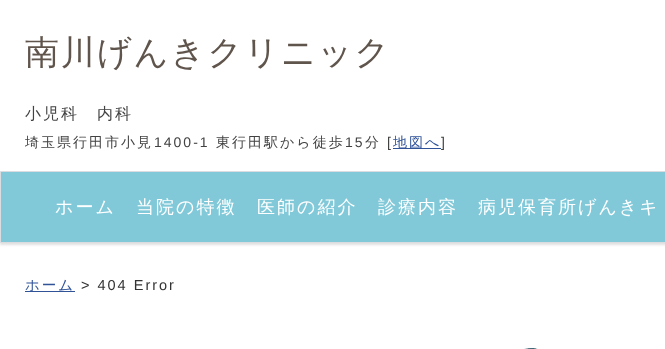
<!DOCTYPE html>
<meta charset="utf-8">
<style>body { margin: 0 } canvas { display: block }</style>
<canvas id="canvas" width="665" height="349"></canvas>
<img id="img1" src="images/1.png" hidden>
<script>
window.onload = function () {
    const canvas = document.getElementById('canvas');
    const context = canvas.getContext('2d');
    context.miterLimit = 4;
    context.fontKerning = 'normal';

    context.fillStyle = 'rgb(255, 255, 255)';
    context.fillRect(0, 0, 665, 349);
    context.fillStyle = 'rgb(48, 83, 152)';
    context.fillRect(393, 148, 48, 1);
    context.fillStyle = 'rgba(0, 0, 0, 0.12)';
    context.filter = 'blur(1px)';
    context.beginPath();
    context.rect(0, 173, 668, 72);
    context.fill();
    context.filter = 'none';
    context.fillStyle = 'rgb(129, 201, 217)';
    context.beginPath();
    context.rect(0.5, 171.5, 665, 71);
    context.fill();
    context.strokeStyle = 'rgb(218, 220, 224)';
    context.stroke();
    context.fillStyle = 'rgb(48, 83, 152)';
    context.fillRect(25, 291, 50, 1);
    context.drawImage(document.getElementById('img1'), 524, 348, 14, 1);
    context.letterSpacing = '2px';
    context.font = '500 34px WenQuanYi Zen Hei';
    context.fillStyle = 'rgb(96, 85, 76)';
    context.fillText('南川げんきクリニック', 25, 64);
    context.font = '500 16px WenQuanYi Zen Hei';
    context.fillStyle = 'rgb(66, 66, 66)';
    context.fillText('小児科　内科', 25, 119);
    context.font = '500 14px WenQuanYi Zen Hei';
    context.fillText('埼玉県行田市小見', 25, 147);
    context.font = '14px Liberation Sans';
    context.fillText('1400-1', 154, 147);
    context.font = '500 14px WenQuanYi Zen Hei';
    context.fillText('東行田駅から徒歩', 216, 147);
    context.font = '14px Liberation Sans';
    context.fillText('15', 345, 147);
    context.font = '500 14px WenQuanYi Zen Hei';
    context.fillText('分', 365, 147);
    context.font = '14px Liberation Sans';
    context.fillText('[', 387, 147);
    context.font = '500 14px WenQuanYi Zen Hei';
    context.fillStyle = 'rgb(48, 83, 152)';
    context.fillText('地図へ', 393, 147);
    context.font = '14px Liberation Sans';
    context.fillStyle = 'rgb(66, 66, 66)';
    context.fillText(']', 441, 147);
    context.font = '500 18px WenQuanYi Zen Hei';
    context.fillStyle = 'rgb(255, 255, 255)';
    context.fillText('ホーム', 55, 213);
    context.fillText('当院の特徴', 136, 213);
    context.fillText('医師の紹介', 257, 213);
    context.fillText('診療内容', 378, 213);
    context.fillText('病児保育所げんきキ', 478, 213);
    context.font = '500 14.5px WenQuanYi Zen Hei';
    context.fillStyle = 'rgb(48, 83, 152)';
    context.fillText('ホーム', 25, 290);
    context.font = '14.5px Liberation Sans';
    context.fillStyle = 'rgb(51, 51, 51)';
    context.fillText('> 404 Error', 81, 290);
};
</script>
